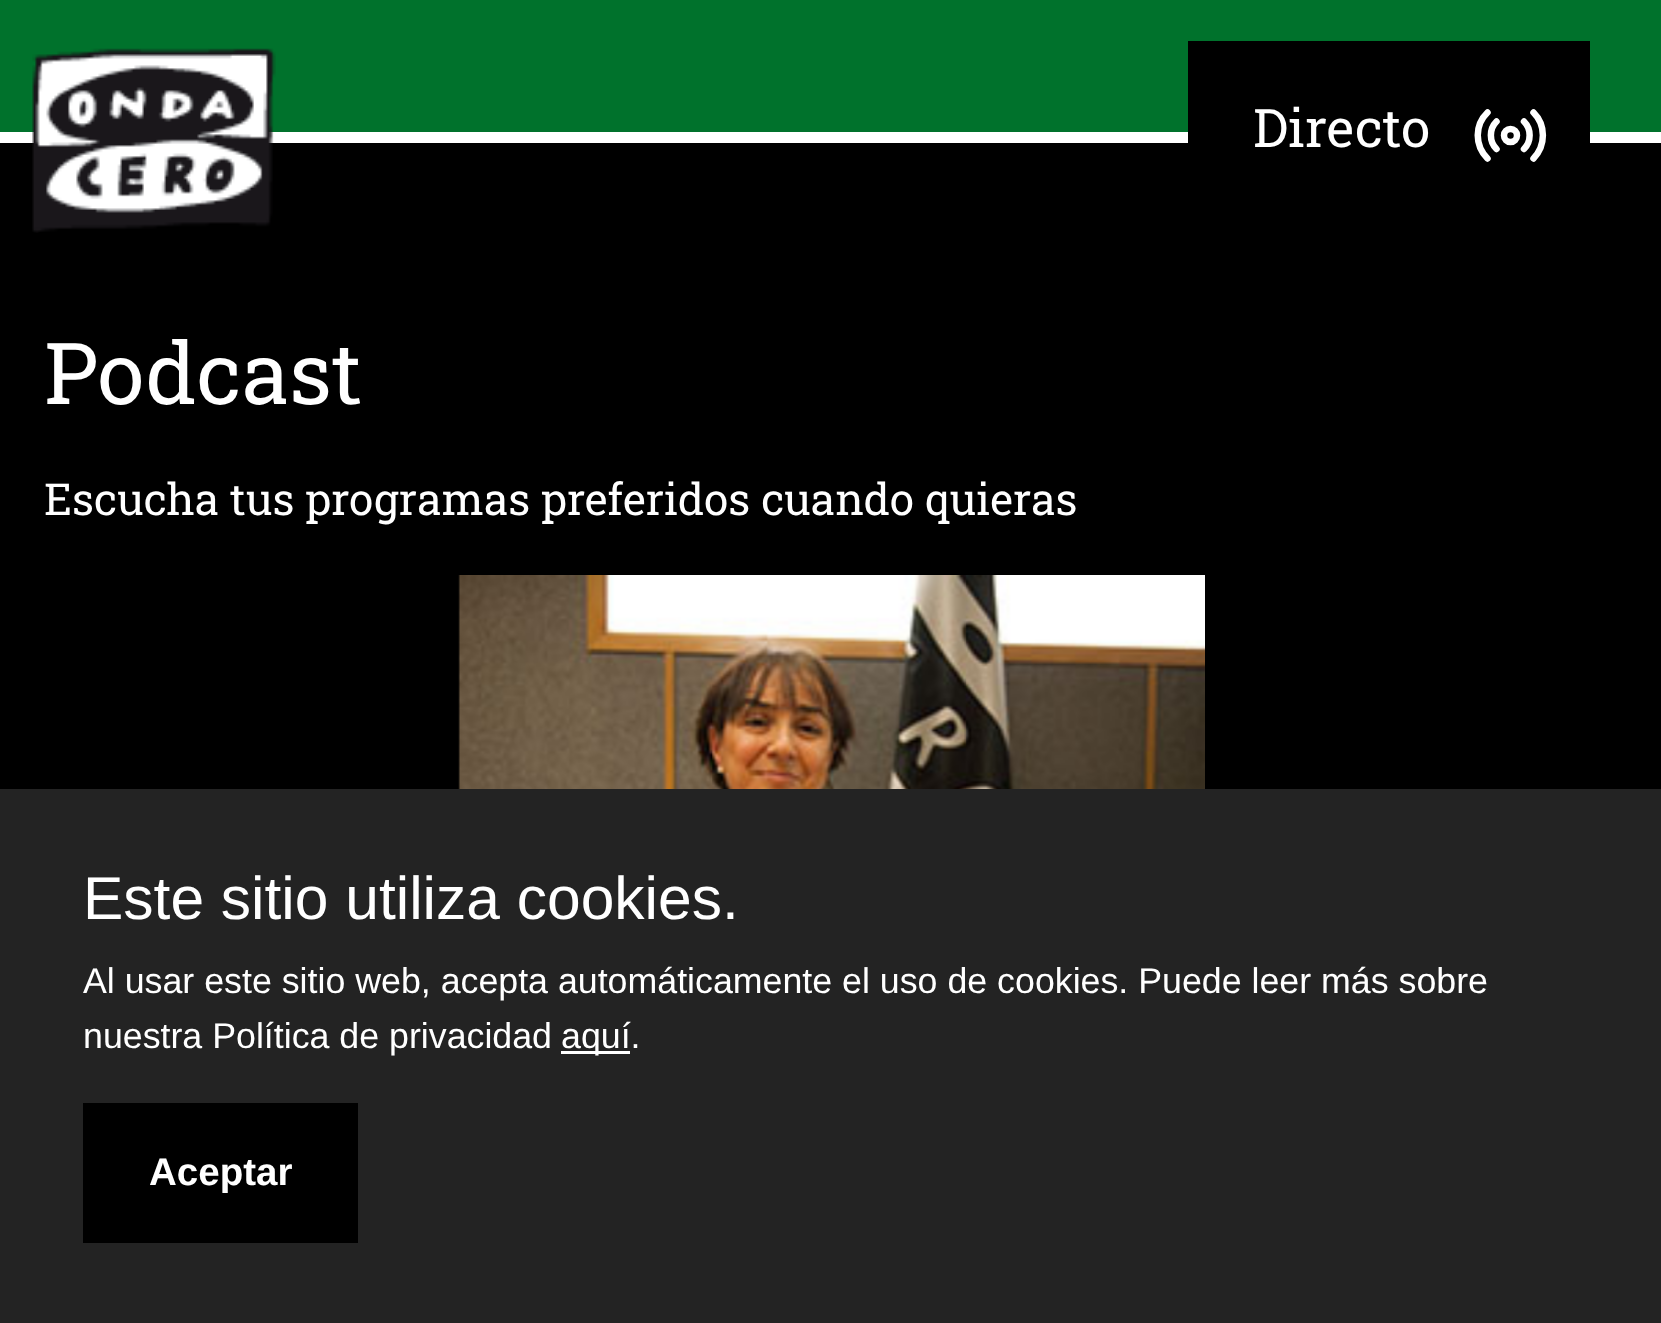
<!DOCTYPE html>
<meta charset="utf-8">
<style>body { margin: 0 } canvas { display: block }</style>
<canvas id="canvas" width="1661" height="1323"></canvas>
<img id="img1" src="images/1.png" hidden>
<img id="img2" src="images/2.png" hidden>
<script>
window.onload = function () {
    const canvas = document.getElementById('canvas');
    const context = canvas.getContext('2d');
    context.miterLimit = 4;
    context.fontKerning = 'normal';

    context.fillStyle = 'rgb(255, 255, 255)';
    context.fillRect(0, 0, 1661, 1323);
    context.fillStyle = 'rgb(0, 114, 44)';
    context.fillRect(0, 0, 1661, 132);
    context.fillStyle = 'rgb(0, 0, 0)';
    context.fillRect(0, 143, 1661, 646);
    context.drawImage(document.getElementById('img1'), 32, 48, 244, 185);
    context.fillRect(1188, 41, 402, 102);
    context.beginPath();
    context.arc(1510.5, 135.5, 6.5, 0, 2 * Math.PI);
    context.strokeStyle = 'rgb(255, 255, 255)';
    context.lineWidth = 6.5;
    context.stroke();
    context.beginPath();
    context.moveTo(1524, 121.5);
    context.bezierCurveTo(1531.5, 129, 1531.5, 141.5, 1524, 149);
    context.moveTo(1496.5, 149);
    context.bezierCurveTo(1489, 141.5, 1489, 129, 1496.5, 121.5);
    context.moveTo(1533.5, 112.5);
    context.bezierCurveTo(1546, 125, 1546, 145.5, 1533.5, 158.5);
    context.moveTo(1487.5, 158.5);
    context.bezierCurveTo(1474.5, 145.5, 1474.5, 125, 1487.5, 112.5);
    context.lineCap = 'round';
    context.lineJoin = 'round';
    context.stroke();
    context.drawImage(document.getElementById('img2'), 458, 575, 747, 214);
    context.fillStyle = 'rgb(35, 35, 35)';
    context.fillRect(0, 789, 1661, 534);
    context.fillStyle = 'rgb(255, 255, 255)';
    context.fillRect(561, 1051, 69, 3);
    context.fillStyle = 'rgb(0, 0, 0)';
    context.fillRect(83, 1103, 275, 140);
    context.font = '53px Roboto Slab';
    context.fillStyle = 'rgb(255, 255, 255)';
    context.fillText('Directo', 1253, 147);
    context.font = '85.5px Roboto Slab';
    context.fillText('Podcast', 44, 404);
    context.font = '44px Roboto Slab';
    context.fillText('Escucha tus programas preferidos cuando quieras', 44, 515);
    context.font = '60.5px Liberation Sans';
    context.fillText('Este sitio utiliza cookies.', 83, 919);
    context.font = '35.75px Liberation Sans';
    context.fillText('Al usar este sitio web, acepta automáticamente el uso de cookies. Puede leer más sobre', 83, 993);
    context.fillText('nuestra Política de privacidad', 83, 1048);
    context.fillText('aquí.', 561, 1048);
    context.font = 'bold 38.5px Liberation Sans';
    context.fillText('Aceptar', 149, 1185);
};
</script>
